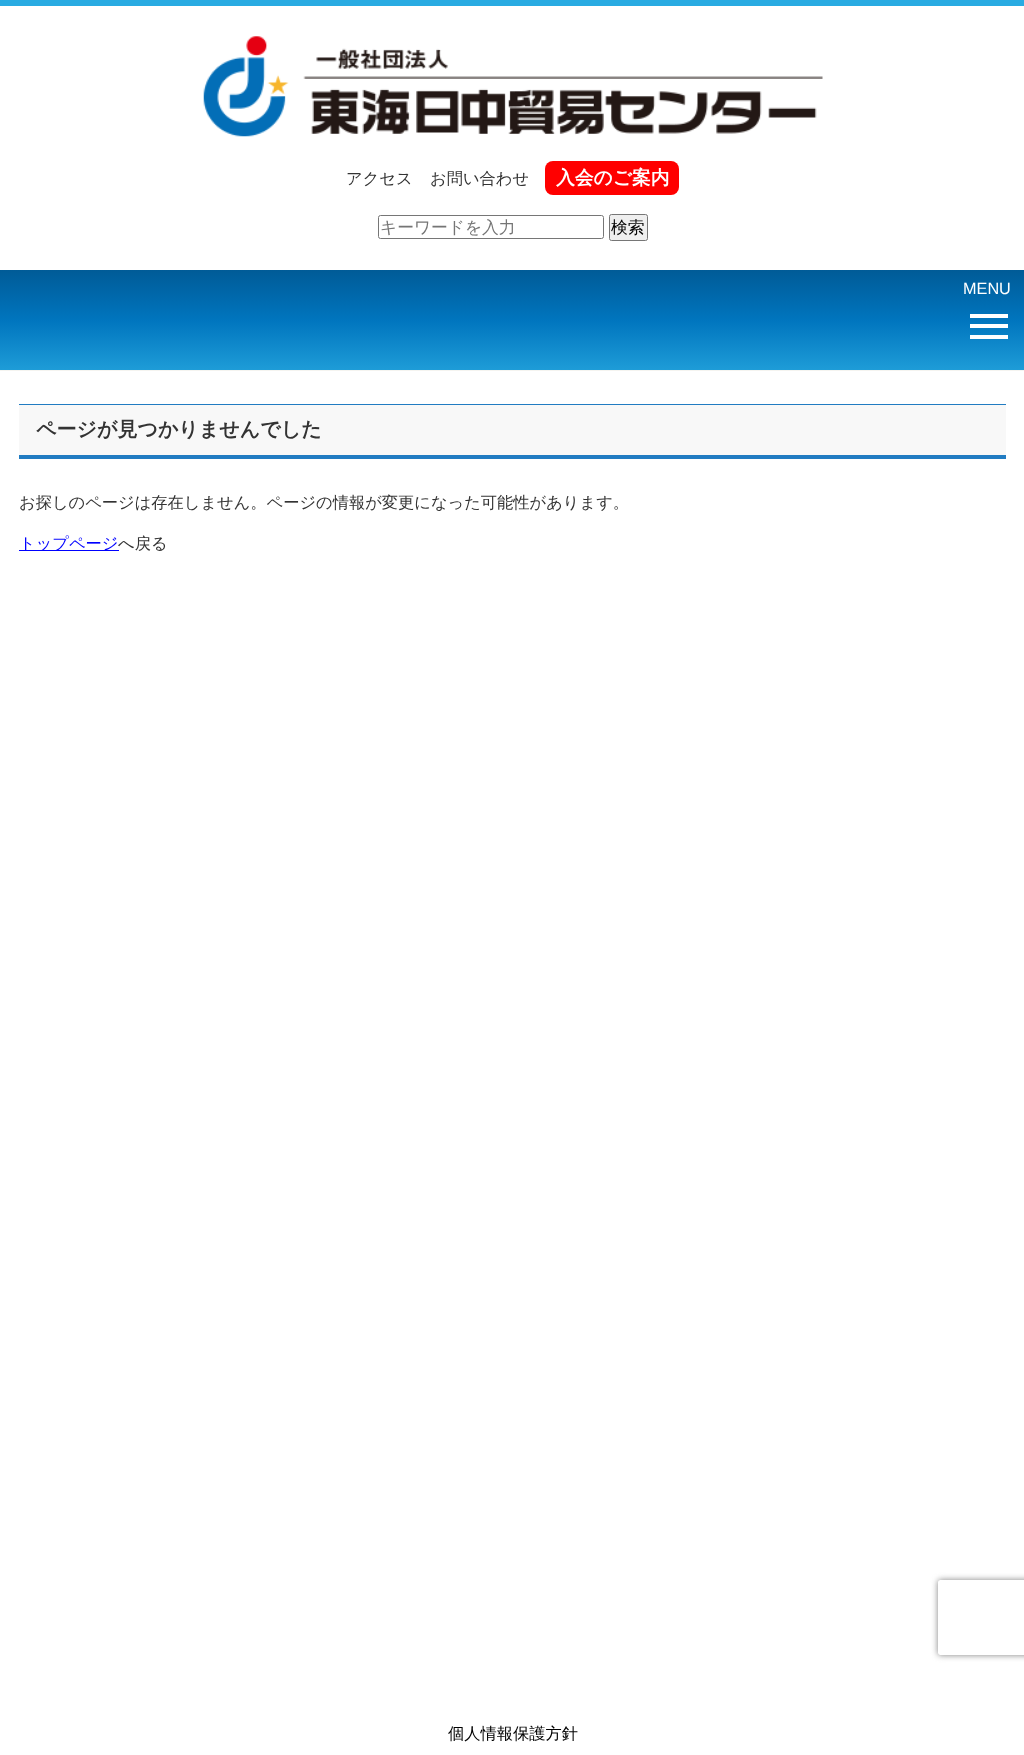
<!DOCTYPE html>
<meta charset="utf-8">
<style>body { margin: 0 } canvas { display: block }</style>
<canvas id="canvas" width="1024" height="1755"></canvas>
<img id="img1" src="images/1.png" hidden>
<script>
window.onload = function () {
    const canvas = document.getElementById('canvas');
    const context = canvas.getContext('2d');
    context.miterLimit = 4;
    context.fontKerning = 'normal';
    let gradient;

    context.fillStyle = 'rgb(255, 255, 255)';
    context.fillRect(0, 0, 1024, 1755);
    context.fillStyle = 'rgb(41, 171, 226)';
    context.fillRect(0, 0, 1024, 6);
    context.drawImage(document.getElementById('img1'), 203, 36, 620, 101);
    context.fillStyle = 'rgb(255, 0, 0)';
    context.beginPath();
    context.roundRect(545, 161, 134, 34, 8);
    context.fill();
    context.beginPath();
    context.roundRect(378.5, 215.5, 225, 23, 2);
    context.strokeStyle = 'rgb(118, 118, 118)';
    context.stroke();
    context.fillStyle = 'rgb(239, 239, 239)';
    context.beginPath();
    context.roundRect(609.5, 214.5, 38, 26, 2);
    context.fill();
    context.stroke();
    context.fillStyle = 'rgb(245, 244, 240)';
    context.fillRect(0, 370, 1024, 1);
    gradient = context.createLinearGradient(513, 270, 513, 370);
    gradient.addColorStop(0, 'rgb(0, 91, 151)');
    gradient.addColorStop(0.5, 'rgb(0, 117, 190)');
    gradient.addColorStop(1, 'rgb(30, 156, 215)');
    context.fillStyle = gradient;
    context.fillRect(0, 270, 1024, 100);
    context.fillStyle = 'rgb(255, 255, 255)';
    context.fillRect(970, 314, 38, 4);
    context.fillRect(970, 324, 38, 4);
    context.fillRect(970, 335, 38, 4);
    context.fillStyle = 'rgb(248, 248, 248)';
    context.fillRect(19, 405, 987, 50);
    context.fillStyle = 'rgb(33, 124, 194)';
    context.fillRect(19, 404, 987, 1);
    context.fillRect(19, 455, 987, 4);
    context.fillStyle = 'rgb(0, 0, 255)';
    context.fillRect(19, 550, 100, 1);
    context.save();
    context.beginPath();
    context.moveTo(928, 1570);
    context.lineTo(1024, 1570);
    context.lineTo(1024, 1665);
    context.lineTo(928, 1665);
    context.closePath();
    context.moveTo(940.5, 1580);
    context.lineTo(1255.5, 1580);
    context.bezierCurveTo(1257, 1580, 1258, 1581, 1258, 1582.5);
    context.lineTo(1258, 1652.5);
    context.bezierCurveTo(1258, 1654, 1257, 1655, 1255.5, 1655);
    context.lineTo(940.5, 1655);
    context.bezierCurveTo(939, 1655, 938, 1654, 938, 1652.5);
    context.lineTo(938, 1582.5);
    context.bezierCurveTo(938, 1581, 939, 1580, 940.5, 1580);
    context.closePath();
    context.clip('evenodd');
    context.fillStyle = 'rgb(128, 128, 128)';
    context.filter = 'blur(3px)';
    context.beginPath();
    context.roundRect(938, 1580, 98, 75, 2.5);
    context.fill();
    context.filter = 'none';
    context.restore();
    context.font = '500 16.25px WenQuanYi Zen Hei';
    context.fillStyle = 'rgb(51, 51, 51)';
    context.fillText('アクセス', 346, 184);
    context.fillText('お問い合わせ', 430, 184);
    context.font = 'bold 18.75px WenQuanYi Zen Hei';
    context.fillStyle = 'rgb(255, 255, 255)';
    context.fillText('入会のご案内', 556, 184);
    context.font = '500 16.75px WenQuanYi Zen Hei';
    context.fillStyle = 'rgb(117, 117, 117)';
    context.fillText('キーワードを入力', 380, 233);
    context.fillStyle = 'rgb(0, 0, 0)';
    context.fillText('検索', 611, 233);
    context.font = '16.25px Liberation Sans';
    context.fillStyle = 'rgb(255, 255, 255)';
    context.fillText('MENU', 963, 294);
    context.font = 'bold 20px WenQuanYi Zen Hei';
    context.fillStyle = 'rgb(51, 51, 51)';
    context.fillText('ページが見つかりませんでした', 36, 436);
    context.font = '500 16.25px WenQuanYi Zen Hei';
    context.fillText('お探しのページは存在しません。ページの情報が変更になった可能性があります。', 19, 508);
    context.fillStyle = 'rgb(0, 0, 255)';
    context.fillText('トップページ', 19, 549);
    context.fillStyle = 'rgb(51, 51, 51)';
    context.fillText('へ戻る', 118, 549);
    context.fillStyle = 'rgb(0, 0, 0)';
    context.fillText('個人情報保護方針', 448, 1739);
};
</script>
